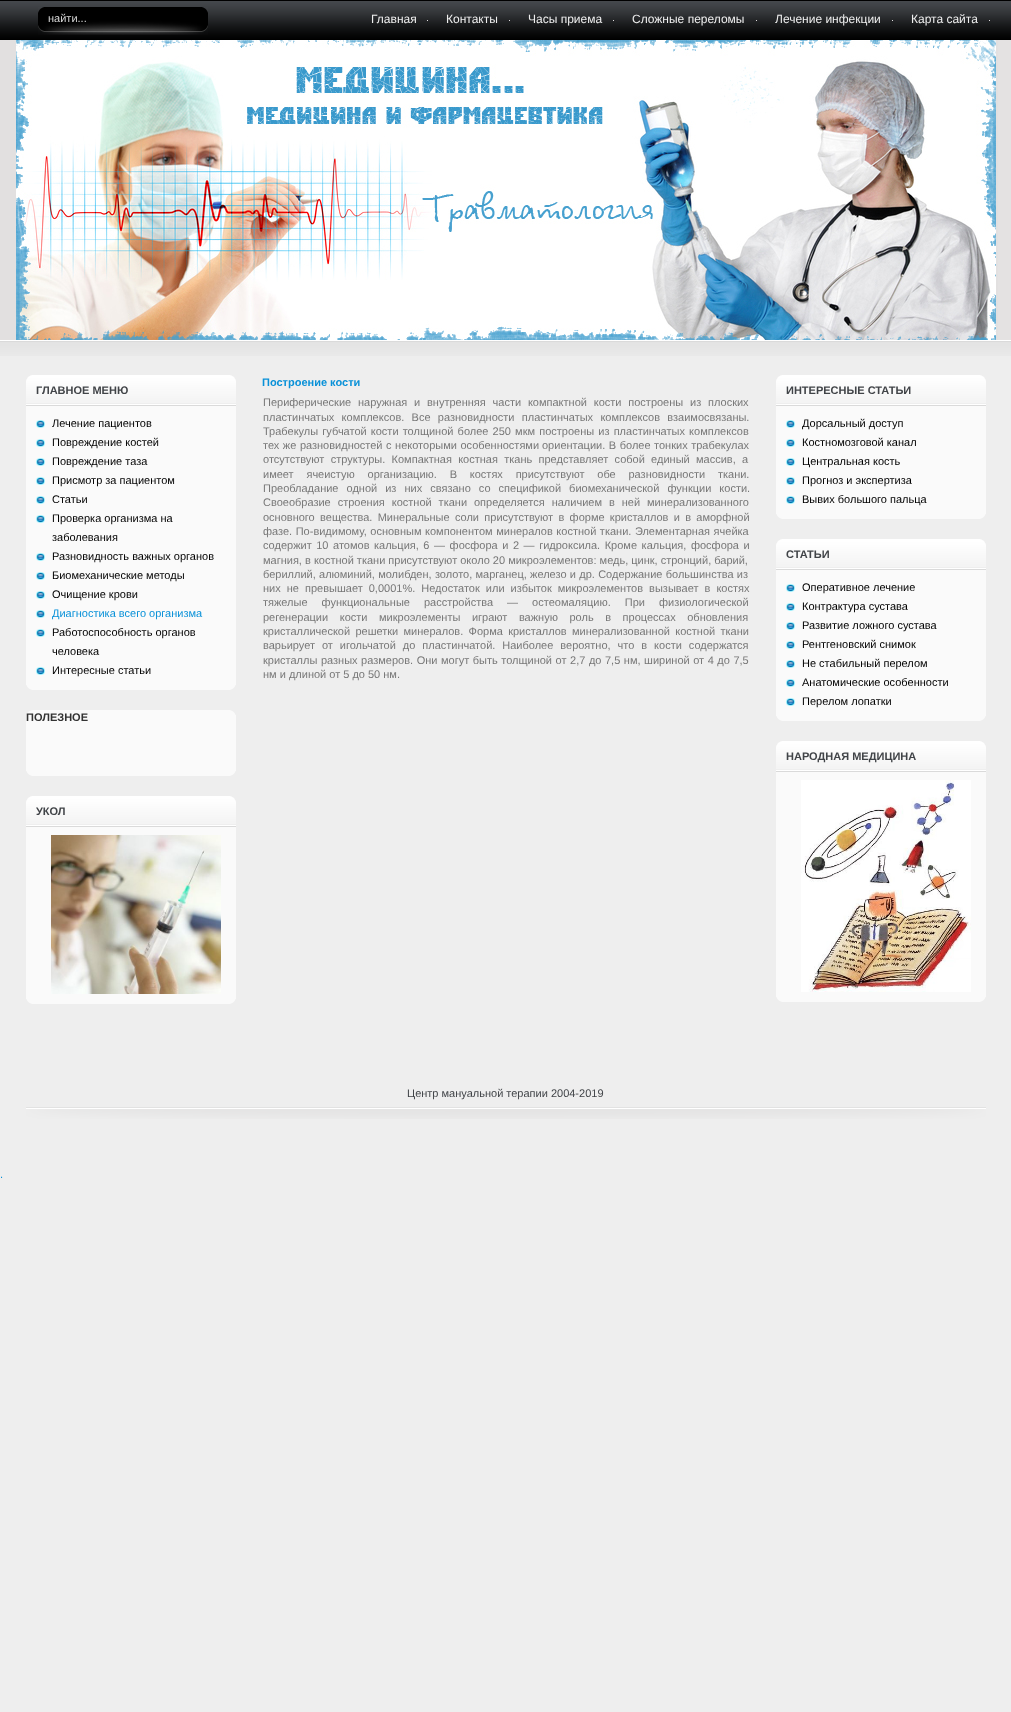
<!DOCTYPE html>
<meta charset="utf-8">
<style>body { margin: 0 } canvas { display: block }</style>
<canvas id="canvas" width="1011" height="1712"></canvas>
<img id="img1" src="images/1.png" hidden>
<img id="img2" src="images/2.png" hidden>
<img id="img3" src="images/3.png" hidden>
<img id="img4" src="images/4.png" hidden>
<img id="img5" src="images/5.png" hidden>
<img id="img6" src="images/6.png" hidden>
<img id="img7" src="images/7.png" hidden>
<img id="img8" src="images/8.png" hidden>
<img id="img9" src="images/9.png" hidden>
<img id="img10" src="images/10.png" hidden>
<script>
window.onload = function () {
    const canvas = document.getElementById('canvas');
    const context = canvas.getContext('2d');
    context.miterLimit = 4;
    context.fontKerning = 'normal';

    context.fillStyle = 'rgb(238, 238, 238)';
    context.fillRect(0, 0, 1011, 1712);
    context.drawImage(document.getElementById('img1'), 0, 0, 1011, 356);
    context.drawImage(document.getElementById('img2'), 16, 40, 980, 300);
    context.drawImage(document.getElementById('img3'), 38, 7, 170, 28);
    context.fillStyle = 'rgb(226, 224, 224)';
    context.fillRect(427, 20, 1, 1);
    context.fillRect(509, 20, 1, 1);
    context.fillRect(613, 20, 1, 1);
    context.fillRect(756, 20, 1, 1);
    context.fillRect(892, 20, 1, 1);
    context.fillRect(989, 20, 1, 1);
    context.fillStyle = 'rgb(250, 250, 250)';
    context.fillRect(26, 406, 210, 279);
    context.drawImage(document.getElementById('img4'), 26, 685, 210, 5);
    context.drawImage(document.getElementById('img5'), 26, 375, 210, 31);
    context.drawImage(document.getElementById('img6'), 36, 420, 9, 8);
    context.drawImage(document.getElementById('img6'), 36, 439, 9, 8);
    context.drawImage(document.getElementById('img6'), 36, 458, 9, 8);
    context.drawImage(document.getElementById('img6'), 36, 477, 9, 8);
    context.drawImage(document.getElementById('img6'), 36, 496, 9, 8);
    context.drawImage(document.getElementById('img6'), 36, 515, 9, 8);
    context.drawImage(document.getElementById('img6'), 36, 553, 9, 8);
    context.drawImage(document.getElementById('img6'), 36, 572, 9, 8);
    context.drawImage(document.getElementById('img6'), 36, 591, 9, 8);
    context.drawImage(document.getElementById('img6'), 36, 610, 9, 8);
    context.drawImage(document.getElementById('img6'), 36, 629, 9, 8);
    context.drawImage(document.getElementById('img6'), 36, 667, 9, 8);
    context.fillRect(26, 715, 210, 56);
    context.drawImage(document.getElementById('img4'), 26, 771, 210, 5);
    context.drawImage(document.getElementById('img7'), 26, 710, 210, 5);
    context.fillRect(26, 827, 210, 172);
    context.drawImage(document.getElementById('img4'), 26, 999, 210, 5);
    context.drawImage(document.getElementById('img5'), 26, 796, 210, 31);
    context.drawImage(document.getElementById('img8'), 51, 835, 170, 159);
    context.fillRect(776, 406, 210, 108);
    context.drawImage(document.getElementById('img4'), 776, 514, 210, 5);
    context.drawImage(document.getElementById('img5'), 776, 375, 210, 31);
    context.drawImage(document.getElementById('img6'), 786, 420, 9, 8);
    context.drawImage(document.getElementById('img6'), 786, 439, 9, 8);
    context.drawImage(document.getElementById('img6'), 786, 458, 9, 8);
    context.drawImage(document.getElementById('img6'), 786, 477, 9, 8);
    context.drawImage(document.getElementById('img6'), 786, 496, 9, 8);
    context.fillRect(776, 570, 210, 146);
    context.drawImage(document.getElementById('img4'), 776, 716, 210, 5);
    context.drawImage(document.getElementById('img5'), 776, 539, 210, 31);
    context.drawImage(document.getElementById('img6'), 786, 584, 9, 8);
    context.drawImage(document.getElementById('img6'), 786, 603, 9, 8);
    context.drawImage(document.getElementById('img6'), 786, 622, 9, 8);
    context.drawImage(document.getElementById('img6'), 786, 641, 9, 8);
    context.drawImage(document.getElementById('img6'), 786, 660, 9, 8);
    context.drawImage(document.getElementById('img6'), 786, 679, 9, 8);
    context.drawImage(document.getElementById('img6'), 786, 698, 9, 8);
    context.fillRect(776, 772, 210, 225);
    context.drawImage(document.getElementById('img4'), 776, 997, 210, 5);
    context.drawImage(document.getElementById('img5'), 776, 741, 210, 31);
    context.drawImage(document.getElementById('img9'), 801, 780, 170, 212);
    context.drawImage(document.getElementById('img10'), 26, 1107, 960, 12);
    context.font = '11px Liberation Sans';
    context.fillStyle = 'rgb(217, 217, 217)';
    context.fillText('найти...', 48, 22);
    context.font = '12px Liberation Sans';
    context.fillStyle = 'rgb(238, 238, 238)';
    context.fillText('Главная', 371, 23);
    context.fillText('Контакты', 446, 23);
    context.fillText('Часы приема', 528, 23);
    context.fillText('Сложные переломы', 632, 23);
    context.fillText('Лечение инфекции', 775, 23);
    context.fillText('Карта сайта', 911, 23);
    context.font = 'bold 11px Liberation Sans';
    context.fillStyle = 'rgb(65, 68, 72)';
    context.fillText('ГЛАВНОЕ МЕНЮ', 36, 394);
    context.font = '11px Liberation Sans';
    context.fillStyle = 'rgb(0, 0, 0)';
    context.fillText('Лечение пациентов', 52, 427);
    context.fillText('Повреждение костей', 52, 446);
    context.fillText('Повреждение таза', 52, 465);
    context.fillText('Присмотр за пациентом', 52, 484);
    context.fillText('Статьи', 52, 503);
    context.fillText('Проверка организма на', 52, 522);
    context.fillText('заболевания', 52, 541);
    context.fillText('Разновидность важных органов', 52, 560);
    context.fillText('Биомеханические методы', 52, 579);
    context.fillText('Очищение крови', 52, 598);
    context.fillStyle = 'rgb(9, 145, 216)';
    context.fillText('Диагностика всего организма', 52, 617);
    context.fillStyle = 'rgb(0, 0, 0)';
    context.fillText('Работоспособность органов', 52, 636);
    context.fillText('человека', 52, 655);
    context.fillText('Интересные статьи', 52, 674);
    context.font = 'bold 11px Liberation Sans';
    context.fillStyle = 'rgb(51, 51, 51)';
    context.fillText('ПОЛЕЗНОЕ', 26, 721);
    context.fillStyle = 'rgb(65, 68, 72)';
    context.fillText('УКОЛ', 36, 815);
    context.fillStyle = 'rgb(9, 145, 216)';
    context.fillText('Построение кости', 262, 386);
    context.wordSpacing = '3.75px';
    context.font = '11px Liberation Sans';
    context.fillStyle = 'rgb(119, 119, 119)';
    context.fillText('Периферические наружная и внутренняя части компактной кости построены из плоских', 263, 406);
    context.wordSpacing = '4.25px';
    context.fillText('пластинчатых комплексов. Все разновидности пластинчатых комплексов взаимосвязаны.', 263, 421);
    context.wordSpacing = '1.1px';
    context.fillText('Трабекулы губчатой кости толщиной более 250 мкм построены из пластинчатых комплексов', 263, 435);
    context.wordSpacing = '0.5px';
    context.fillText('тех же разновидностей с некоторыми особенностями', 263, 449);
    context.fillText('ориентации. В более тонких трабекулах', 542, 449);
    context.wordSpacing = '3.25px';
    context.fillText('отсутствуют структуры. Компактная костная ткань представляет собой единый массив, а', 263, 463);
    context.wordSpacing = '9.75px';
    context.fillText('имеет ячеистую организацию. В костях присутствуют обе разновидности ткани.', 263, 478);
    context.wordSpacing = '5px';
    context.fillText('Преобладание одной из них связано со спецификой биомеханической функции кости.', 263, 492);
    context.wordSpacing = '3.9px';
    context.fillText('Своеобразие строения костной ткани определяется наличием в ней минерализованного', 263, 506);
    context.wordSpacing = '2.25px';
    context.fillText('основного вещества. Минеральные соли присутствуют в форме кристаллов и в аморфной', 263, 521);
    context.wordSpacing = '0.5px';
    context.fillText('фазе. По-видимому, основным компонентом минералов костной ткани. Элементарная ячейка', 263, 535);
    context.wordSpacing = '1.5px';
    context.fillText('содержит 10 атомов кальция, 6 — фосфора и 2 — гидроксила. Кроме кальция, фосфора и', 263, 549);
    context.wordSpacing = '0px';
    context.fillText('магния, в костной ткани присутствуют около 20 микроэлементов: медь, цинк, стронций, барий,', 263, 564);
    context.wordSpacing = '0.25px';
    context.fillText('бериллий, алюминий, молибден, золото, марганец, железо и др. Содержание большинства из', 263, 578);
    context.wordSpacing = '3px';
    context.fillText('них не превышает 0,0001%. Недостаток или избыток микроэлементов вызывает в костях', 263, 592);
    context.wordSpacing = '11px';
    context.fillText('тяжелые функциональные расстройства — остеомаляцию. При физиологической', 263, 606);
    context.wordSpacing = '8.5px';
    context.fillText('регенерации кости микроэлементы играют важную роль в процессах обновления', 263, 621);
    context.wordSpacing = '2.25px';
    context.fillText('кристаллической решетки минералов. Форма кристаллов минерализованной костной ткани', 263, 635);
    context.wordSpacing = '3.9px';
    context.fillText('варьирует от игольчатой до пластинчатой. Наиболее вероятно, что в кости содержатся', 263, 649);
    context.wordSpacing = '0.5px';
    context.fillText('кристаллы разных размеров. Они могут быть толщиной от 2,7 до 7,5 нм, шириной от 4 до 7,5', 263, 664);
    context.wordSpacing = '0px';
    context.fillText('нм и длиной от 5 до 50 нм.', 263, 678);
    context.font = 'bold 11px Liberation Sans';
    context.fillStyle = 'rgb(65, 68, 72)';
    context.fillText('ИНТЕРЕСНЫЕ СТАТЬИ', 786, 394);
    context.font = '11px Liberation Sans';
    context.fillStyle = 'rgb(0, 0, 0)';
    context.fillText('Дорсальный доступ', 802, 427);
    context.fillText('Костномозговой канал', 802, 446);
    context.fillText('Центральная кость', 802, 465);
    context.fillText('Прогноз и экспертиза', 802, 484);
    context.fillText('Вывих большого пальца', 802, 503);
    context.font = 'bold 11px Liberation Sans';
    context.fillStyle = 'rgb(65, 68, 72)';
    context.fillText('СТАТЬИ', 786, 558);
    context.font = '11px Liberation Sans';
    context.fillStyle = 'rgb(0, 0, 0)';
    context.fillText('Оперативное лечение', 802, 591);
    context.fillText('Контрактура сустава', 802, 610);
    context.fillText('Развитие ложного сустава', 802, 629);
    context.fillText('Рентгеновский снимок', 802, 648);
    context.fillText('Не стабильный перелом', 802, 667);
    context.fillText('Анатомические особенности', 802, 686);
    context.fillText('Перелом лопатки', 802, 705);
    context.font = 'bold 11px Liberation Sans';
    context.fillStyle = 'rgb(65, 68, 72)';
    context.fillText('НАРОДНАЯ МЕДИЦИНА', 786, 760);
    context.font = '11px Liberation Sans';
    context.fillText('Центр мануальной терапии 2004-2019', 407, 1097);
    context.fillStyle = 'rgb(9, 145, 216)';
    context.fillText('.', 0, 1178);
};
</script>
